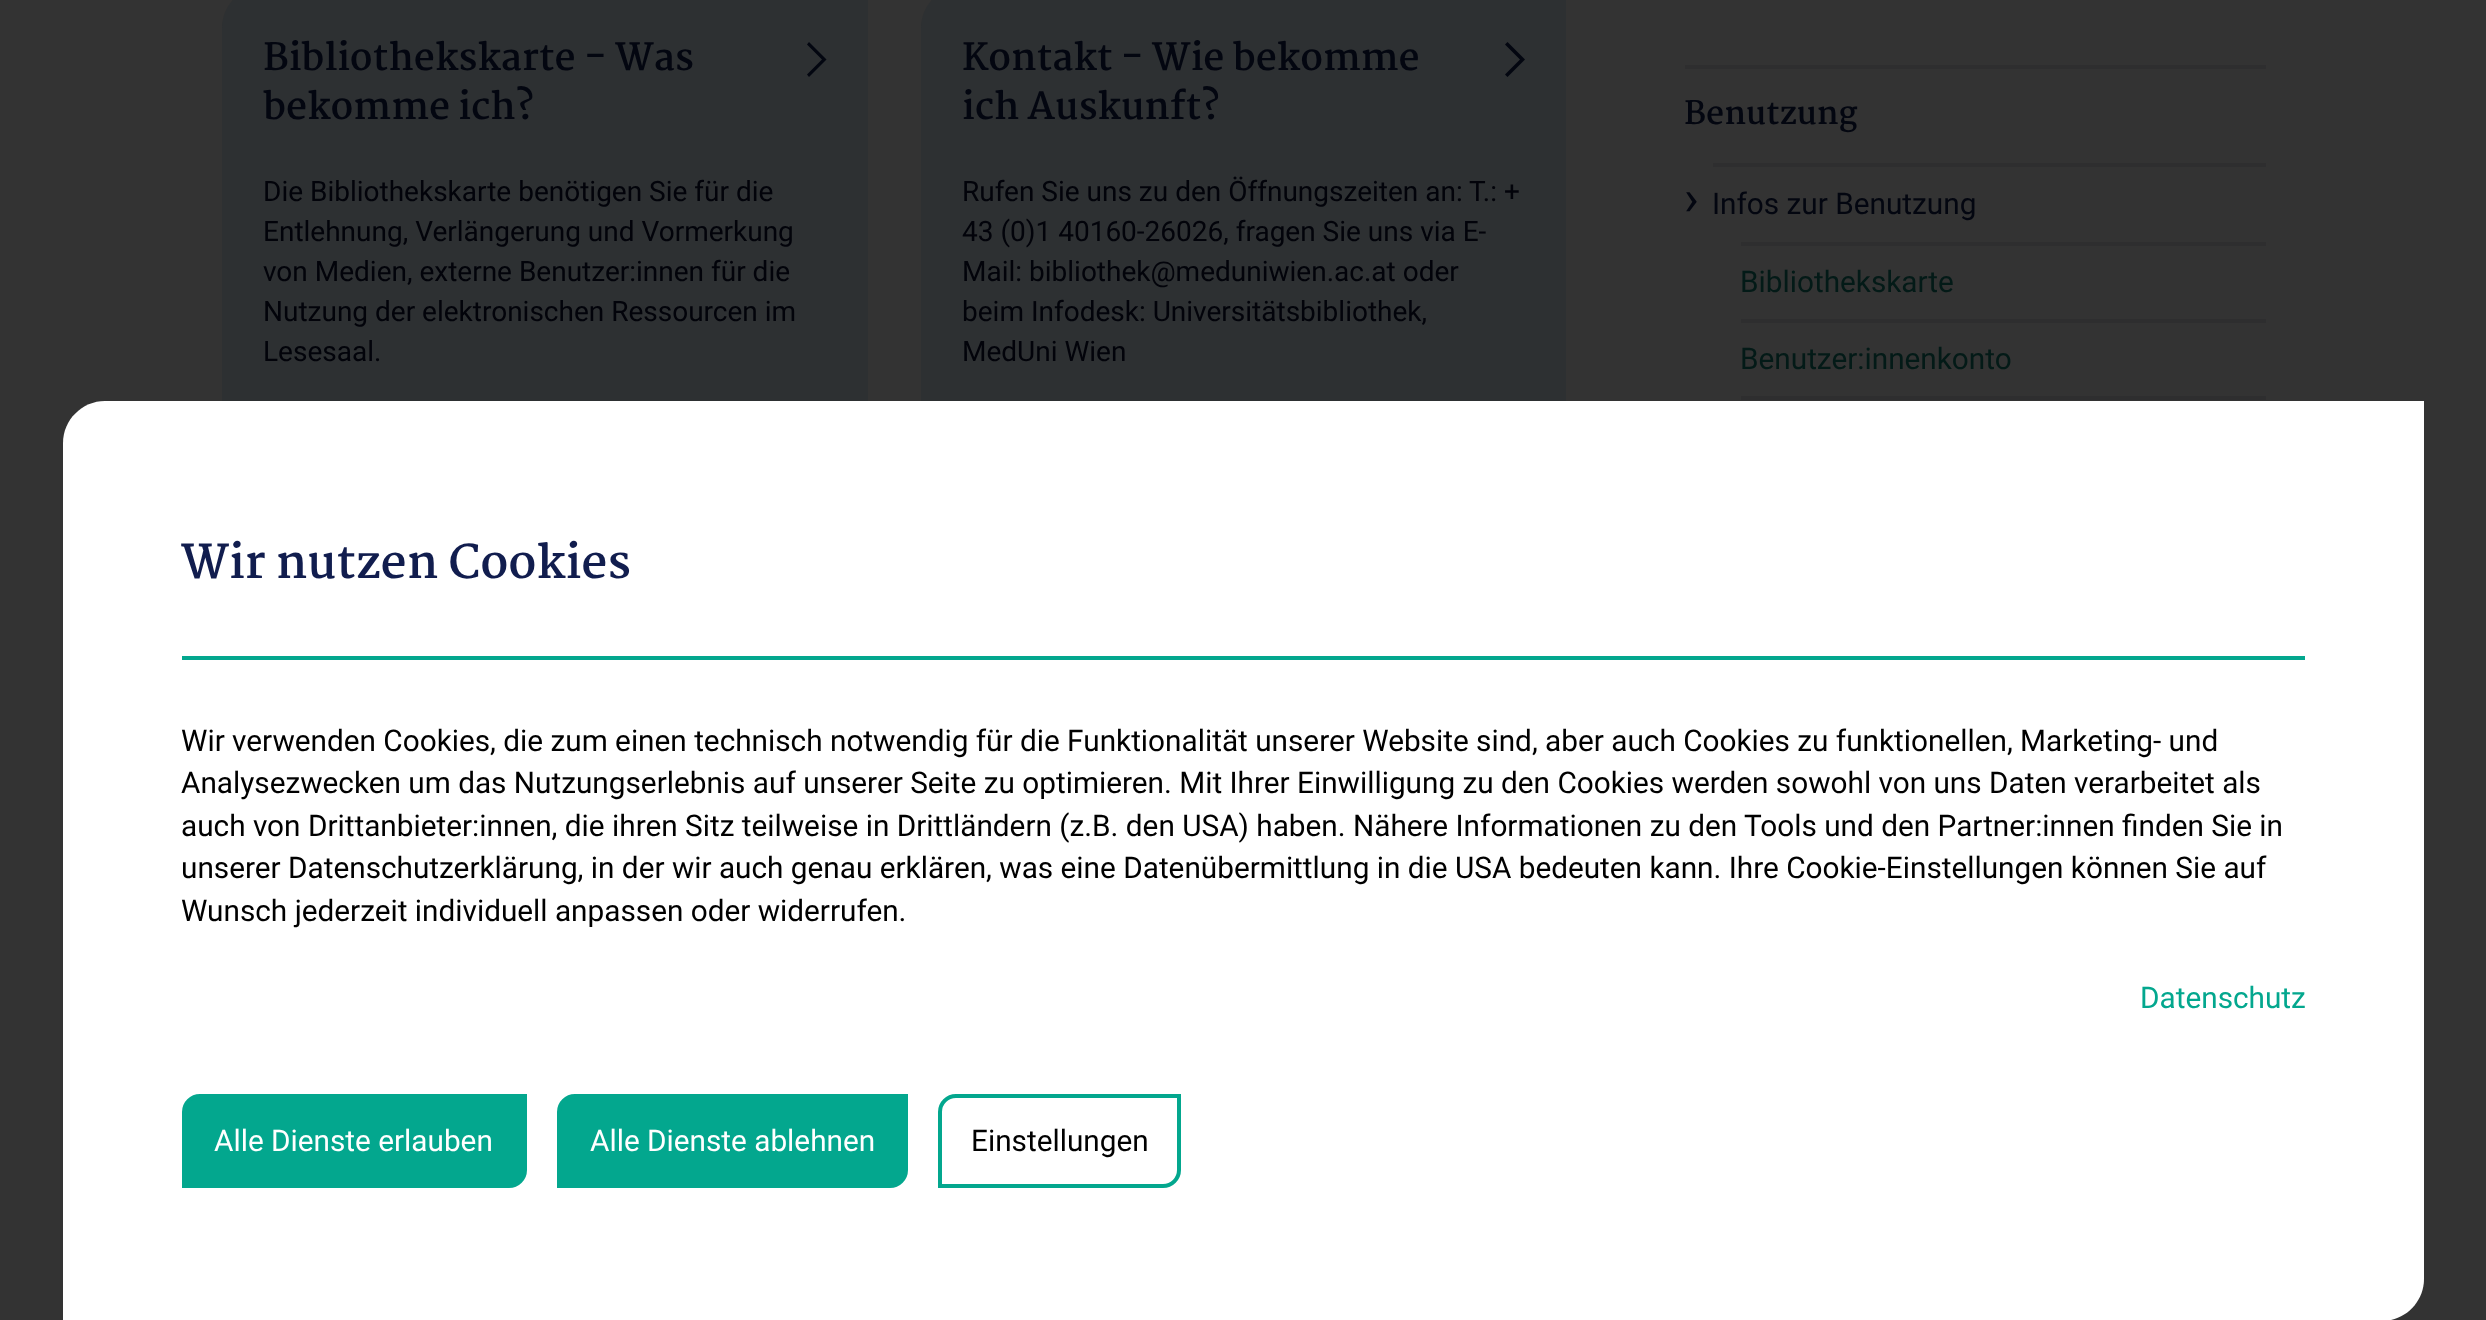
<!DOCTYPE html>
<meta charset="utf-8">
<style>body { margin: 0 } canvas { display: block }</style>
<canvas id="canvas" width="2486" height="1320"></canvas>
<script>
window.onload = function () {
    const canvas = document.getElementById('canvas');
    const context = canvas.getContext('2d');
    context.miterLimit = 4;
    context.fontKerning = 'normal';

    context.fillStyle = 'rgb(51, 51, 51)';
    context.fillRect(0, 0, 2486, 1320);
    context.fillStyle = 'rgb(45, 48, 50)';
    context.beginPath();
    context.moveTo(264, -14);
    context.lineTo(868, -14);
    context.lineTo(868, 424);
    context.bezierCurveTo(868, 447, 849, 466, 826, 466);
    context.lineTo(222, 466);
    context.lineTo(222, 28);
    context.bezierCurveTo(222, 5, 241, -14, 264, -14);
    context.closePath();
    context.fill();
    context.fillStyle = 'rgb(3, 6, 16)';
    context.beginPath();
    context.moveTo(826.5, 59.5);
    context.lineTo(809, 42);
    context.lineTo(807, 44.5);
    context.lineTo(822, 59.5);
    context.lineTo(807, 74.5);
    context.lineTo(809, 77);
    context.lineTo(826.5, 59.5);
    context.fill('evenodd');
    context.fillStyle = 'rgb(45, 48, 50)';
    context.beginPath();
    context.moveTo(963, -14);
    context.lineTo(1566, -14);
    context.lineTo(1566, 424);
    context.bezierCurveTo(1566, 447, 1547, 466, 1524, 466);
    context.lineTo(921, 466);
    context.lineTo(921, 28);
    context.bezierCurveTo(921, 5, 940, -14, 963, -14);
    context.closePath();
    context.fill();
    context.fillStyle = 'rgb(3, 6, 16)';
    context.beginPath();
    context.moveTo(1525, 59.5);
    context.lineTo(1507.5, 42);
    context.lineTo(1505, 44.5);
    context.lineTo(1520, 59.5);
    context.lineTo(1505, 74.5);
    context.lineTo(1507.5, 77);
    context.lineTo(1525, 59.5);
    context.fill('evenodd');
    context.fillStyle = 'rgb(46, 46, 47)';
    context.fillRect(1685, 65, 581, 4);
    context.fillRect(1713, 163, 553, 4);
    context.fillRect(1741, 242, 525, 4);
    context.fillRect(1741, 319, 525, 4);
    context.fillRect(1741, 396, 525, 4);
    context.fillStyle = 'rgb(255, 255, 255)';
    context.beginPath();
    context.moveTo(105, 401);
    context.lineTo(2424, 401);
    context.lineTo(2424, 1279);
    context.bezierCurveTo(2424, 1302, 2405, 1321, 2382, 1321);
    context.lineTo(63, 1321);
    context.lineTo(63, 443);
    context.bezierCurveTo(63, 420, 82, 401, 105, 401);
    context.closePath();
    context.fill();
    context.fillStyle = 'rgb(3, 167, 142)';
    context.fillRect(182, 656, 2123, 4);
    context.beginPath();
    context.roundRect(184, 1096, 341, 90, [16, 0, 16, 0]);
    context.fill();
    context.strokeStyle = 'rgb(3, 167, 142)';
    context.lineWidth = 4;
    context.stroke();
    context.beginPath();
    context.roundRect(559, 1096, 347, 90, [16, 0, 16, 0]);
    context.fill();
    context.stroke();
    context.beginPath();
    context.roundRect(940, 1096, 239, 90, [16, 0, 16, 0]);
    context.stroke();
    context.font = 'bold 36.75px Martel';
    context.fillStyle = 'rgb(3, 6, 16)';
    context.fillText('Bibliothekskarte - Was', 263, 70);
    context.fillText('bekomme ich?', 263, 119);
    context.font = '28px Roboto';
    context.fillStyle = 'rgb(2, 3, 10)';
    context.fillText('Die Bibliothekskarte benötigen Sie für die', 263, 201);
    context.fillText('Entlehnung, Verlängerung und Vormerkung', 263, 241);
    context.fillText('von Medien, externe Benutzer:innen für die', 263, 281);
    context.fillText('Nutzung der elektronischen Ressourcen im', 263, 321);
    context.fillText('Lesesaal.', 263, 361);
    context.font = 'bold 36.75px Martel';
    context.fillStyle = 'rgb(3, 6, 16)';
    context.fillText('Kontakt - Wie bekomme', 962, 70);
    context.fillText('ich Auskunft?', 962, 119);
    context.font = '28px Roboto';
    context.fillStyle = 'rgb(2, 3, 10)';
    context.fillText('Rufen Sie uns zu den Öffnungszeiten an: T.: +', 962, 201);
    context.fillText('43 (0)1 40160-26026, fragen Sie uns via E-', 962, 241);
    context.fillText('Mail: bibliothek@meduniwien.ac.at oder', 962, 281);
    context.fillText('beim Infodesk: Universitätsbibliothek,', 962, 321);
    context.fillText('MedUni Wien', 962, 361);
    context.font = 'bold 31.5px Martel';
    context.fillStyle = 'rgb(3, 6, 16)';
    context.fillText('Benutzung', 1684, 124);
    context.font = '49px Roboto';
    context.fillText('›', 1684, 215);
    context.font = '29.75px Roboto';
    context.fillText('Infos zur Benutzung', 1712, 214);
    context.fillStyle = 'rgb(3, 26, 23)';
    context.fillText('Bibliothekskarte', 1740, 292);
    context.fillText('Benutzer:innenkonto', 1740, 369);
    context.font = 'bold 45.5px Martel';
    context.fillStyle = 'rgb(17, 29, 78)';
    context.fillText('Wir nutzen Cookies', 181, 578);
    context.font = '29.75px Roboto';
    context.fillStyle = 'rgb(0, 0, 0)';
    context.fillText('Wir verwenden Cookies, die zum einen technisch notwendig für die Funktionalität unserer Website sind, aber auch Cookies zu funktionellen, Marketing- und', 181, 751);
    context.fillText('Analysezwecken um das Nutzungserlebnis auf unserer Seite zu optimieren. Mit Ihrer Einwilligung zu den Cookies werden sowohl von uns Daten verarbeitet als', 181, 793);
    context.fillText('auch von Drittanbieter:innen, die ihren Sitz teilweise in Drittländern (z.B. den USA) haben. Nähere Informationen zu den Tools und den Partner:innen finden Sie in', 181, 836);
    context.fillText('unserer Datenschutzerklärung, in der wir auch genau erklären, was eine Datenübermittlung in die USA bedeuten kann. Ihre Cookie-Einstellungen können Sie auf', 181, 878);
    context.fillText('Wunsch jederzeit individuell anpassen oder widerrufen.', 181, 921);
    context.fillStyle = 'rgb(3, 167, 142)';
    context.fillText('Datenschutz', 2140, 1008);
    context.fillStyle = 'rgb(255, 255, 255)';
    context.fillText('Alle Dienste erlauben', 214, 1151);
    context.fillText('Alle Dienste ablehnen', 590, 1151);
    context.fillStyle = 'rgb(0, 0, 0)';
    context.fillText('Einstellungen', 971, 1151);
};
</script>
